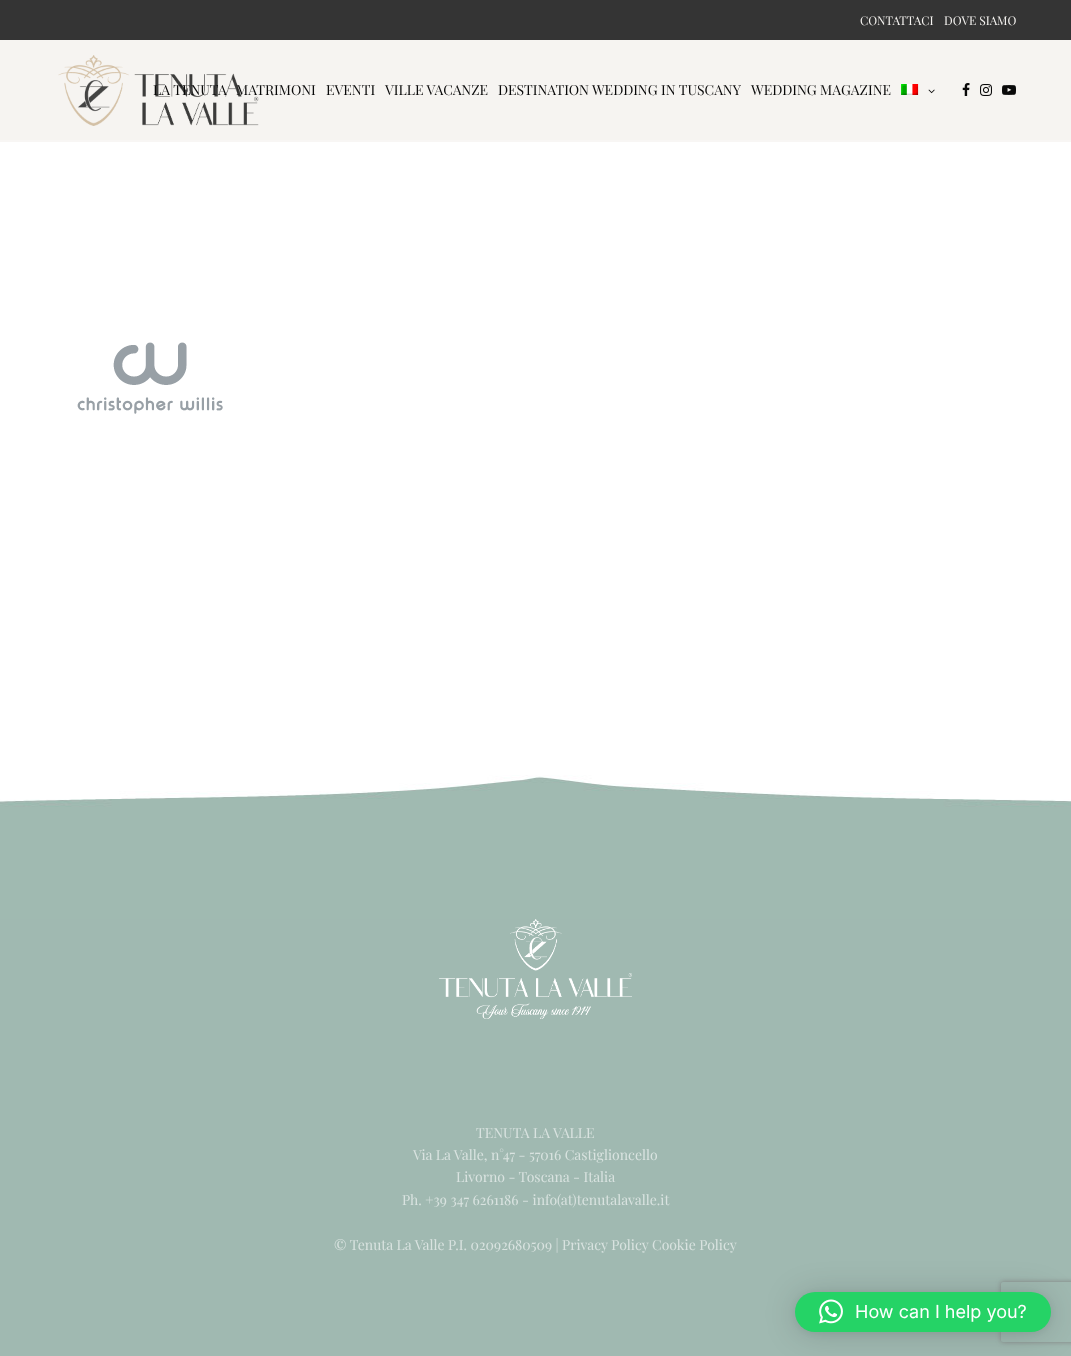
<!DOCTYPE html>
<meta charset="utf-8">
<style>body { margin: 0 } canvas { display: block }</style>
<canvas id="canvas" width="1071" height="1356"></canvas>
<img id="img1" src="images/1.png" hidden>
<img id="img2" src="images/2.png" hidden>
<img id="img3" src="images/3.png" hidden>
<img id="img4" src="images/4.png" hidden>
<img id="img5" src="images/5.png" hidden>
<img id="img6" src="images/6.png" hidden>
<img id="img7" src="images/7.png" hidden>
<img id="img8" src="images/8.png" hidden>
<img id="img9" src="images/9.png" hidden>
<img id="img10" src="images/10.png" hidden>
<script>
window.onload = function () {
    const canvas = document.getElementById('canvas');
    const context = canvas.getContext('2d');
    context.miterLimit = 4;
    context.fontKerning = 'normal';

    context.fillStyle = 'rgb(255, 255, 255)';
    context.fillRect(0, 0, 1071, 1356);
    context.fillStyle = 'rgb(52, 52, 52)';
    context.fillRect(0, 0, 1071, 40);
    context.fillStyle = 'rgb(246, 244, 241)';
    context.fillRect(0, 40, 1071, 100);
    context.fillStyle = 'rgb(248, 246, 244)';
    context.fillRect(0, 140, 1071, 2);
    context.drawImage(document.getElementById('img1'), 58, 55, 201, 71);
    context.drawImage(document.getElementById('img2'), 962, 83, 8, 13);
    context.drawImage(document.getElementById('img3'), 980, 84, 12, 12);
    context.drawImage(document.getElementById('img4'), 1002, 85, 14, 10);
    context.drawImage(document.getElementById('img5'), 901, 84, 18, 11);
    context.drawImage(document.getElementById('img6'), 928, 89, 7, 5);
    context.drawImage(document.getElementById('img7'), 77, 342, 146, 72);
    context.drawImage(document.getElementById('img8'), 0, 759, 1071, 160);
    context.fillStyle = 'rgb(160, 185, 177)';
    context.fillRect(0, 919, 1071, 437);
    context.drawImage(document.getElementById('img9'), 439, 919, 193, 100);
    context.fillStyle = 'rgba(0, 0, 0, 0.16)';
    context.filter = 'blur(16px)';
    context.beginPath();
    context.roundRect(795, 1294, 256, 40, 20);
    context.fill();
    context.filter = 'none';
    context.fillStyle = 'rgba(0, 0, 0, 0.06)';
    context.filter = 'blur(3px)';
    context.beginPath();
    context.roundRect(795, 1293, 256, 40, 20);
    context.fill();
    context.filter = 'none';
    context.save();
    context.beginPath();
    context.moveTo(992, 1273);
    context.lineTo(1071, 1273);
    context.lineTo(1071, 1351);
    context.lineTo(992, 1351);
    context.closePath();
    context.moveTo(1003, 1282);
    context.lineTo(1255, 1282);
    context.bezierCurveTo(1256, 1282, 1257, 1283, 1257, 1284);
    context.lineTo(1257, 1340);
    context.bezierCurveTo(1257, 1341, 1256, 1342, 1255, 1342);
    context.lineTo(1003, 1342);
    context.bezierCurveTo(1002, 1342, 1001, 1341, 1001, 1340);
    context.lineTo(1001, 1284);
    context.bezierCurveTo(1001, 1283, 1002, 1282, 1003, 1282);
    context.closePath();
    context.clip('evenodd');
    context.fillStyle = 'rgb(128, 128, 128)';
    context.filter = 'blur(2.5px)';
    context.beginPath();
    context.roundRect(1001, 1282, 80, 60, 2);
    context.fill();
    context.filter = 'none';
    context.restore();
    context.fillStyle = 'rgb(37, 211, 102)';
    context.beginPath();
    context.roundRect(795, 1292, 256, 40, 20);
    context.fill();
    context.drawImage(document.getElementById('img10'), 819, 1299, 24, 25);
    context.font = '12px Playfair Display';
    context.fillStyle = 'rgb(246, 244, 241)';
    context.fillText('CONTATTACI', 860, 25);
    context.fillText('DOVE SIAMO', 944, 25);
    context.font = '14px Playfair Display';
    context.fillStyle = 'rgb(9, 9, 9)';
    context.fillText('LA TENUTA', 153, 95);
    context.fillText('MATRIMONI', 236, 95);
    context.fillText('EVENTI', 326, 95);
    context.fillText('VILLE VACANZE', 385, 95);
    context.fillText('DESTINATION WEDDING IN TUSCANY', 498, 95);
    context.fillText('WEDDING MAGAZINE', 751, 95);
    context.fillStyle = 'rgb(217, 227, 224)';
    context.fillText('TENUTA LA VALLE', 476, 1138);
    context.fillText('Via La Valle, n°47 - 57016 Castiglioncello', 413, 1160);
    context.fillText('Livorno - Toscana - Italia', 456, 1182);
    context.fillText('Ph. +39 347 6261186 - info(at)tenutalavalle.it', 402, 1205);
    context.fillText('© Tenuta La Valle P.I. 02092680509 |', 334, 1250);
    context.fillText('Privacy Policy', 562, 1250);
    context.fillText('Cookie Policy', 652, 1250);
    context.font = '18px Inter';
    context.fillStyle = 'rgb(255, 255, 255)';
    context.fillText('How can I help you?', 855, 1318);
};
</script>
